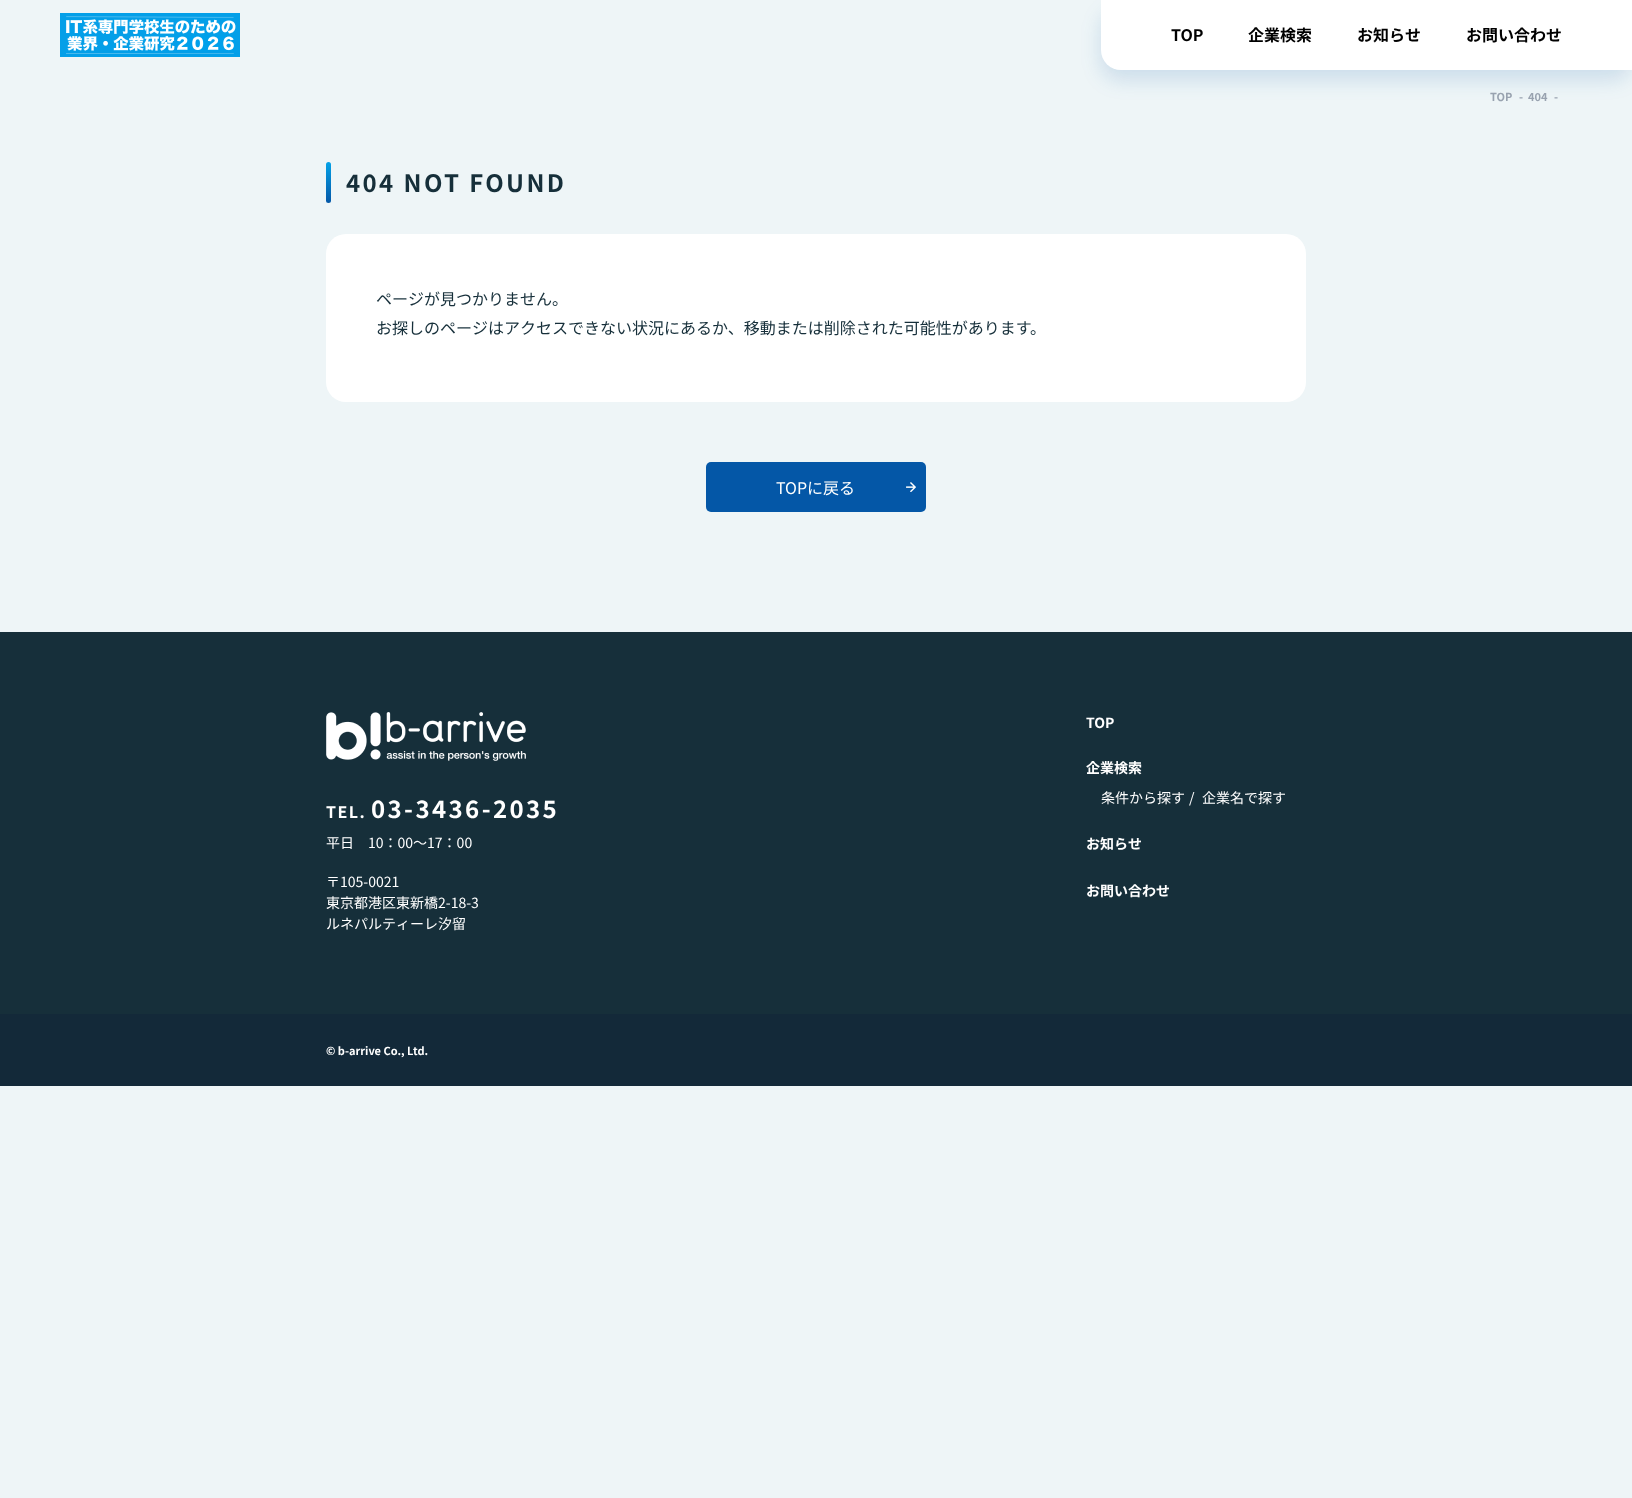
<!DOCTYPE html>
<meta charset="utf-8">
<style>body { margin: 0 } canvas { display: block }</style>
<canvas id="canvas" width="1632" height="1498"></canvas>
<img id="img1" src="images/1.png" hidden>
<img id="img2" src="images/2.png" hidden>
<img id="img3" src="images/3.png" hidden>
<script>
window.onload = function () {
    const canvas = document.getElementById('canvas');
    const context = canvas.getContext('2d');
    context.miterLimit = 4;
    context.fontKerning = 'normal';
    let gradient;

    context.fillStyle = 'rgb(238, 245, 247)';
    context.fillRect(0, 0, 1632, 1498);
    context.drawImage(document.getElementById('img1'), 60, 13, 180, 44);
    context.fillStyle = 'rgba(4, 87, 167, 0.15)';
    context.filter = 'blur(10px)';
    context.beginPath();
    context.roundRect(1101, 10, 531, 70, 20);
    context.fill();
    context.filter = 'none';
    context.fillStyle = 'rgb(255, 255, 255)';
    context.beginPath();
    context.roundRect(1101, 0, 531, 70, [0, 0, 0, 20]);
    context.fill();
    gradient = context.createLinearGradient(329, 162, 329, 203);
    gradient.addColorStop(0, 'rgb(4, 162, 232)');
    gradient.addColorStop(1, 'rgb(4, 87, 167)');
    context.fillStyle = gradient;
    context.beginPath();
    context.roundRect(326, 162, 5, 41, 2.5);
    context.fill();
    context.fillStyle = 'rgb(255, 255, 255)';
    context.beginPath();
    context.roundRect(326, 234, 980, 168, 20);
    context.fill();
    context.fillStyle = 'rgb(4, 87, 167)';
    context.beginPath();
    context.roundRect(706, 462, 220, 50, 5);
    context.fill();
    context.drawImage(document.getElementById('img2'), 906, 482, 10, 10);
    context.fillStyle = 'rgb(22, 47, 58)';
    context.fillRect(0, 632, 1632, 382);
    context.drawImage(document.getElementById('img3'), 326, 712, 200, 49);
    context.fillStyle = 'rgb(19, 41, 57)';
    context.fillRect(0, 1014, 1632, 72);
    context.font = 'bold 16px Noto Sans JP';
    context.fillStyle = 'rgb(0, 0, 0)';
    context.fillText('TOP', 1171, 41);
    context.fillText('企業検索', 1248, 41);
    context.fillText('お知らせ', 1357, 41);
    context.fillText('お問い合わせ', 1466, 41);
    context.font = 'bold 11px Noto Sans JP';
    context.fillStyle = 'rgb(152, 162, 175)';
    context.fillText('TOP', 1490, 101);
    context.fillText('-', 1519, 101);
    context.fillText('404', 1528, 101);
    context.fillText('-', 1554, 101);
    context.letterSpacing = '2.4px';
    context.font = 'bold 24px Noto Sans JP';
    context.fillStyle = 'rgb(22, 47, 58)';
    context.fillText('404 NOT FOUND', 346, 192);
    context.letterSpacing = '0px';
    context.font = '16px Noto Sans JP';
    context.fillText('ページが見つかりません。', 376, 305);
    context.fillText('お探しのページはアクセスできない状況にあるか、移動または削除された可能性があります。', 376, 334);
    context.fillStyle = 'rgb(255, 255, 255)';
    context.fillText('TOPに戻る', 776, 494);
    context.letterSpacing = '1.5px';
    context.font = 'bold 16px Noto Sans JP';
    context.fillText('TEL.', 326, 818);
    context.letterSpacing = '2.4px';
    context.font = 'bold 24px Noto Sans JP';
    context.fillText('03-3436-2035', 371, 818);
    context.letterSpacing = '0px';
    context.font = '14px Noto Sans JP';
    context.fillText('平日　10：00～17：00', 326, 848);
    context.fillText('〒105-0021', 326, 887);
    context.fillText('東京都港区東新橋2-18-3', 326, 908);
    context.fillText('ルネパルティーレ汐留', 326, 929);
    context.font = 'bold 14px Noto Sans JP';
    context.fillText('TOP', 1086, 728);
    context.fillText('企業検索', 1086, 773);
    context.font = '14px Noto Sans JP';
    context.fillText('条件から探す', 1101, 803);
    context.fillText('/', 1189, 803);
    context.fillText('企業名で探す', 1202, 803);
    context.font = 'bold 14px Noto Sans JP';
    context.fillText('お知らせ', 1086, 849);
    context.fillText('お問い合わせ', 1086, 896);
    context.font = 'bold 11px Noto Sans JP';
    context.fillText('© b-arrive Co., Ltd.', 326, 1055);
};
</script>
